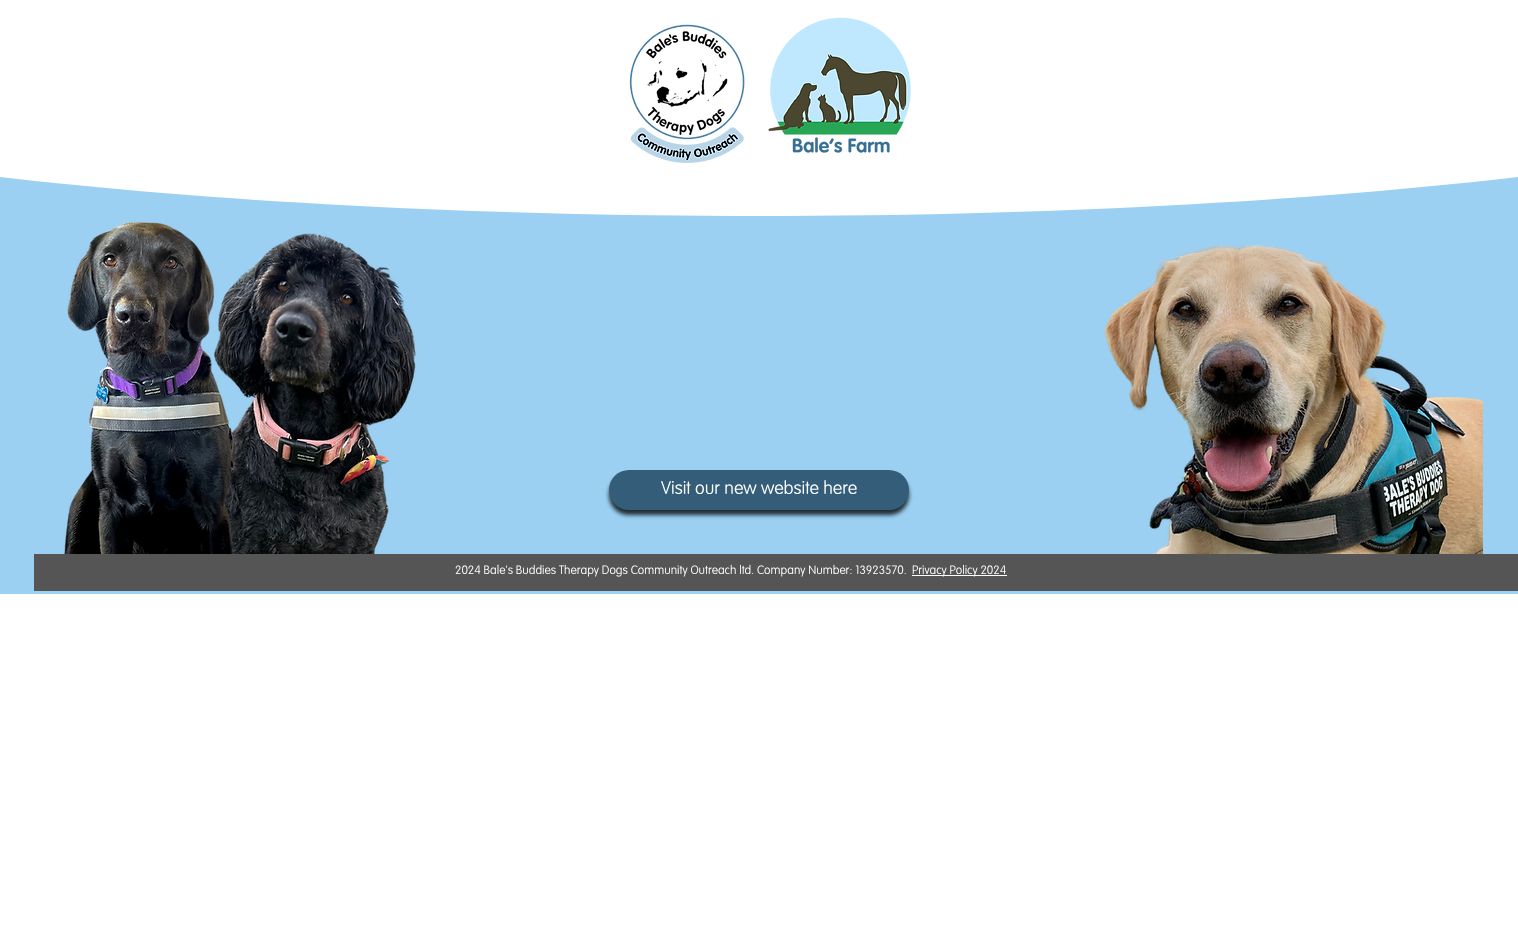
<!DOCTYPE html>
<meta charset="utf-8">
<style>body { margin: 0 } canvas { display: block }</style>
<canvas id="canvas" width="1518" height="941"></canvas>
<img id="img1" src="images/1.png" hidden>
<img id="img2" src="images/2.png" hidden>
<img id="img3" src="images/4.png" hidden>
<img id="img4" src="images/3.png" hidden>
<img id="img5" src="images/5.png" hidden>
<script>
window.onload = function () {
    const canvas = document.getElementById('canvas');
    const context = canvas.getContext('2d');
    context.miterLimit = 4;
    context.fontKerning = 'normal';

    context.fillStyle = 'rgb(255, 255, 255)';
    context.fillRect(0, 0, 1518, 941);
    context.drawImage(document.getElementById('img1'), 629, 24, 116, 139);
    context.drawImage(document.getElementById('img2'), 768, 17, 143, 136);
    context.fillStyle = 'rgb(155, 208, 242)';
    context.fillRect(0, 177, 1518, 417);
    context.fillStyle = 'rgb(255, 255, 255)';
    context.beginPath();
    context.moveTo(1518, 177);
    context.bezierCurveTo(1310, 201, 1046, 216, 759, 216);
    context.bezierCurveTo(472, 216, 208, 201, 0, 177);
    context.lineTo(0, 175);
    context.lineTo(1518, 175);
    context.closePath();
    context.fill();
    context.drawImage(document.getElementById('img3'), 214, 233, 202, 321);
    context.drawImage(document.getElementById('img4'), 64, 222, 172, 332);
    context.fillStyle = 'rgba(0, 0, 0, 0.79)';
    context.filter = 'blur(2px)';
    context.beginPath();
    context.roundRect(609, 475, 300, 40, 20);
    context.fill();
    context.filter = 'none';
    context.fillStyle = 'rgb(51, 93, 120)';
    context.beginPath();
    context.roundRect(609, 470, 300, 40, 20);
    context.fill();
    context.drawImage(document.getElementById('img5'), 1104, 244, 379, 310);
    context.fillStyle = 'rgb(85, 85, 85)';
    context.fillRect(34, 554, 1484, 37);
    context.fillStyle = 'rgb(255, 255, 255)';
    context.fillRect(912, 575, 95, 1);
    context.font = '100 18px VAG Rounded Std';
    context.fillText('Visit our new website here', 661, 494);
    context.font = '100 12px VAG Rounded Std';
    context.fillText('2024 Bale\'s Buddies Therapy Dogs Community Outreach ltd. Company Number: 13923570.', 455, 574);
    context.fillText('Privacy Policy 2024', 912, 574);
};
</script>
